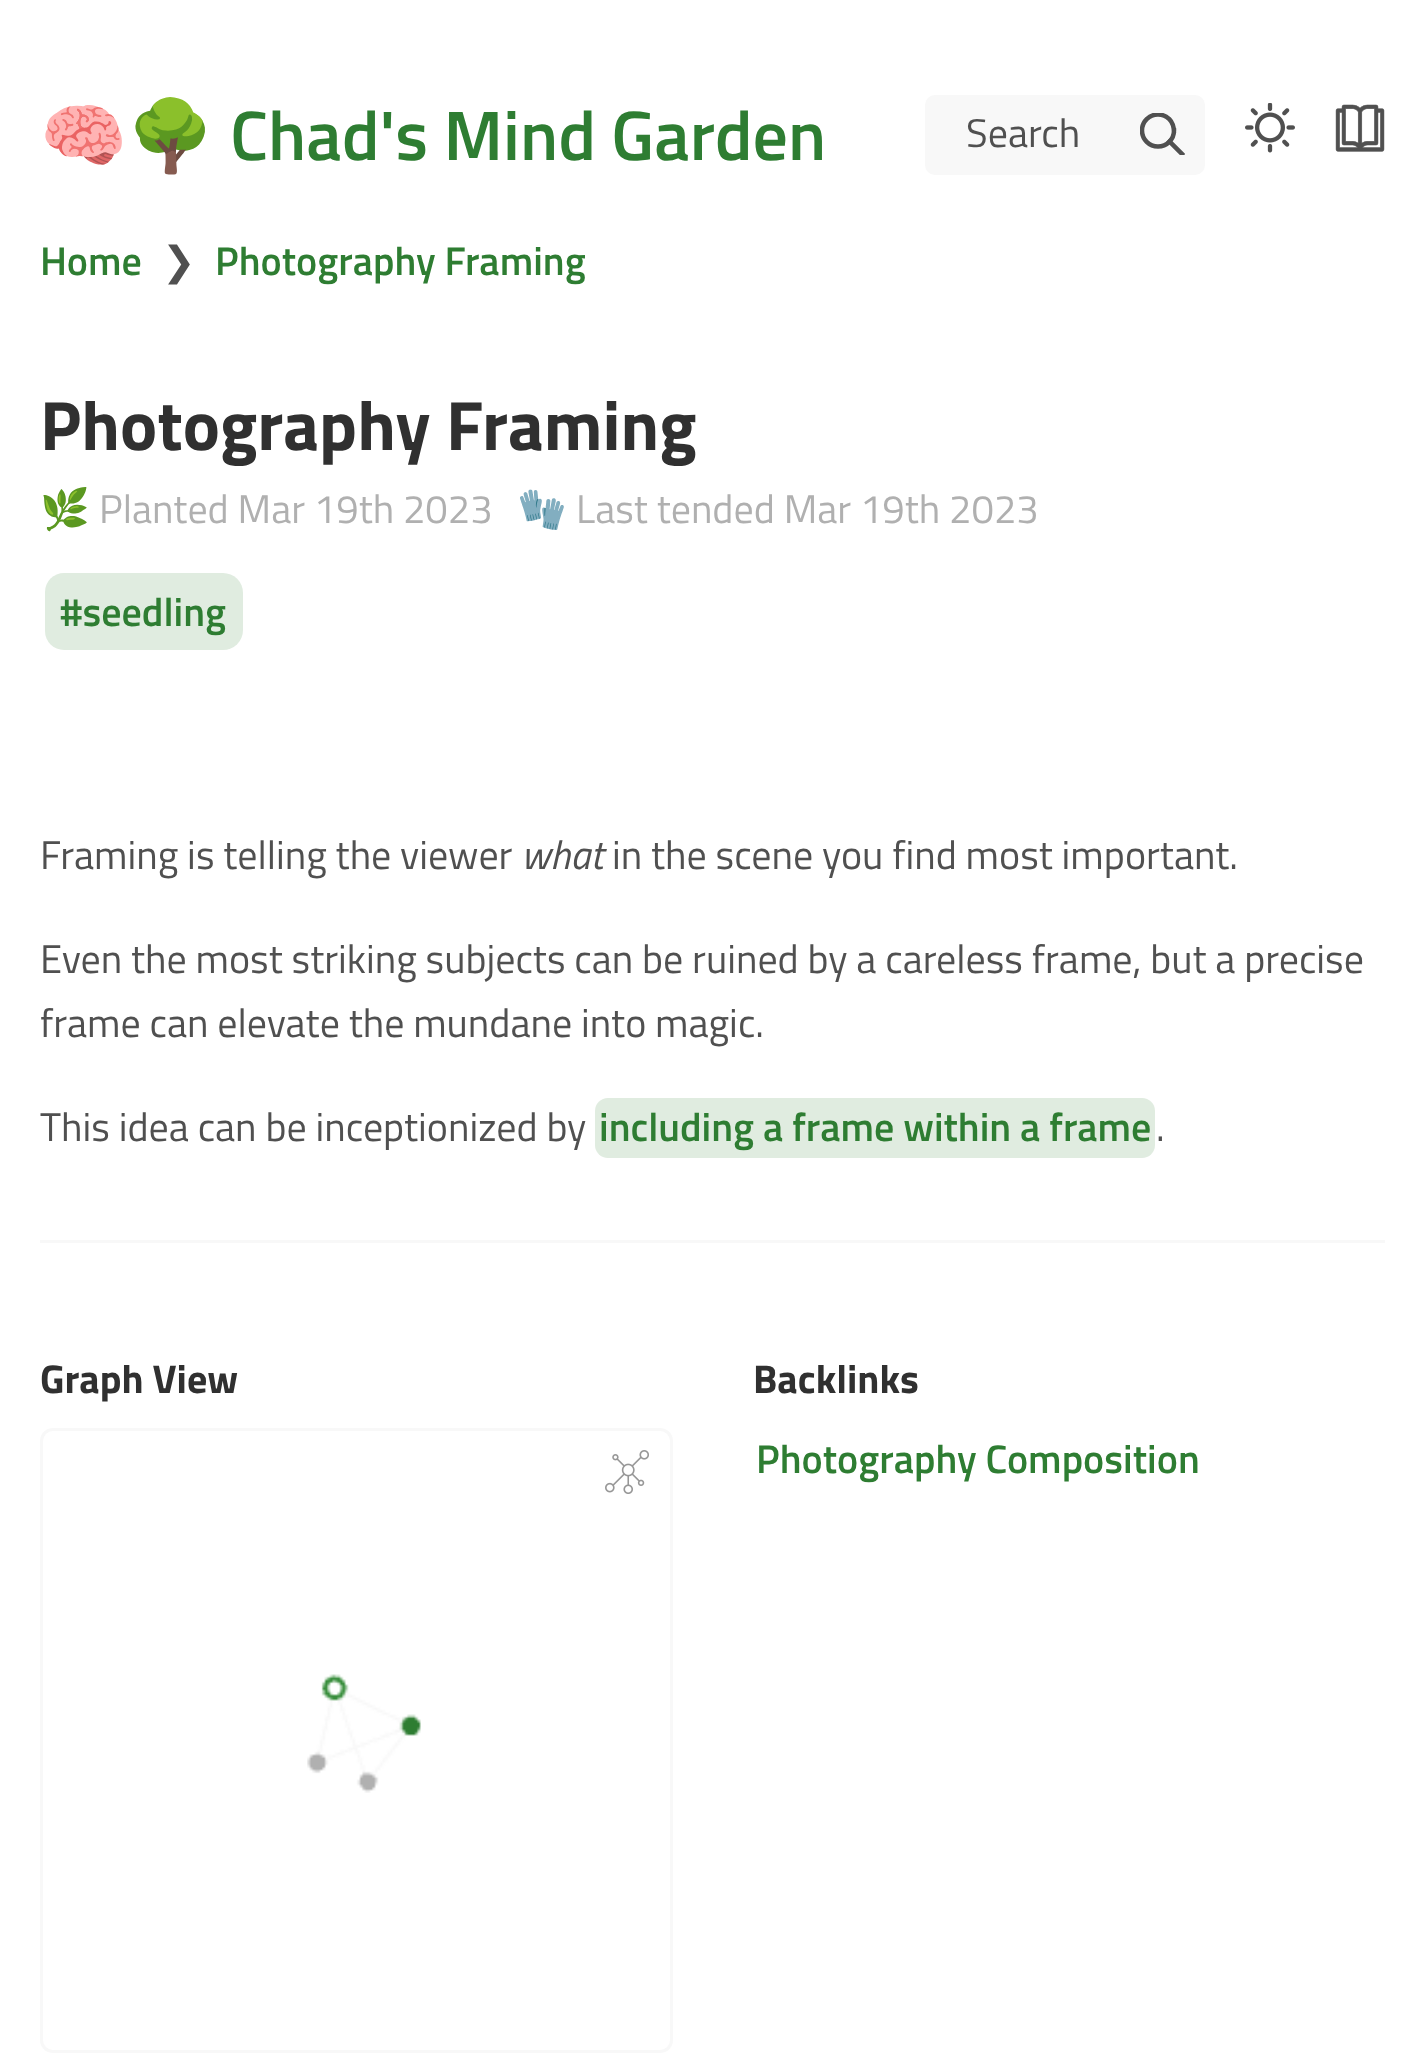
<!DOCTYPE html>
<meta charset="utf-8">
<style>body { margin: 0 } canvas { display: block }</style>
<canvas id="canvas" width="1424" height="2058"></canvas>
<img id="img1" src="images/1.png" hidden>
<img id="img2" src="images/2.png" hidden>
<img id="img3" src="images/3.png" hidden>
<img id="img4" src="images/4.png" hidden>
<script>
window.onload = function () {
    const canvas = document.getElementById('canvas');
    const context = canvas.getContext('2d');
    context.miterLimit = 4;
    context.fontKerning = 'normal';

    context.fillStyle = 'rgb(255, 255, 255)';
    context.fillRect(0, 0, 1424, 2058);
    context.fillStyle = 'rgb(248, 248, 248)';
    context.beginPath();
    context.roundRect(925, 95, 280, 80, 10);
    context.fill();
    context.save();
    context.beginPath();
    context.rect(1140, 113, 45, 42);
    context.clip();
    context.beginPath();
    context.moveTo(1182, 154);
    context.lineTo(1169.5, 141.5);
    context.strokeStyle = 'rgb(80, 80, 80)';
    context.lineWidth = 4.5;
    context.lineCap = 'square';
    context.stroke();
    context.beginPath();
    context.arc(1158, 130.5, 16, 0, 2 * Math.PI);
    context.stroke();
    context.restore();
    context.drawImage(document.getElementById('img1'), 1245, 103, 50, 50);
    context.drawImage(document.getElementById('img2'), 1335, 104, 50, 48);
    context.fillStyle = 'rgb(224, 236, 224)';
    context.beginPath();
    context.roundRect(45, 573, 38, 77, [19, 0, 0, 19]);
    context.fill();
    context.beginPath();
    context.roundRect(83, 573, 160, 77, [0, 20, 20, 0]);
    context.fill();
    context.beginPath();
    context.roundRect(595, 1098, 560, 60, 13);
    context.fill();
    context.fillStyle = 'rgb(248, 248, 248)';
    context.fillRect(40, 1240, 1345, 3);
    context.beginPath();
    context.roundRect(41.5, 1429.5, 630, 622, 11.5);
    context.strokeStyle = 'rgb(248, 248, 248)';
    context.lineWidth = 3;
    context.stroke();
    context.drawImage(document.getElementById('img3'), 605, 1450, 44, 44);
    context.drawImage(document.getElementById('img4'), 307, 1674, 114, 119);
    context.font = 'bold 70px Noto Color Emoji';
    context.fillStyle = 'rgb(46, 125, 50)';
    context.fillText('🧠🌳', 40, 160);
    context.font = '600 70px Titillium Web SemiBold';
    context.fillText('Chad\'s Mind Garden', 230, 160);
    context.font = '40px Titillium Web';
    context.fillStyle = 'rgb(80, 80, 80)';
    context.fillText('Search', 966, 147);
    context.font = '600 40px Titillium Web SemiBold';
    context.fillStyle = 'rgb(46, 125, 50)';
    context.fillText('Home', 40, 275);
    context.font = '40px DejaVu Sans';
    context.fillStyle = 'rgb(80, 80, 80)';
    context.fillText('❯', 162, 275);
    context.font = '600 40px Titillium Web SemiBold';
    context.fillStyle = 'rgb(46, 125, 50)';
    context.fillText('Photography Framing', 215, 275);
    context.font = 'bold 70px Titillium Web';
    context.fillStyle = 'rgb(48, 48, 48)';
    context.fillText('Photography Framing', 40, 450);
    context.font = '40px Noto Color Emoji';
    context.fillStyle = 'rgb(176, 176, 176)';
    context.fillText('🌿', 40, 523);
    context.font = '40px Titillium Web';
    context.fillText('Planted Mar 19th 2023', 99, 523);
    context.font = '40px Noto Color Emoji';
    context.fillText('🧤', 517, 523);
    context.font = '40px Titillium Web';
    context.fillText('Last tended Mar 19th 2023', 576, 523);
    context.font = '600 40px Titillium Web SemiBold';
    context.fillStyle = 'rgb(46, 125, 50)';
    context.fillText('#seedling', 60, 626);
    context.font = '40px Titillium Web';
    context.fillStyle = 'rgb(80, 80, 80)';
    context.fillText('Framing is telling the viewer', 40, 869);
    context.font = 'italic 40px Titillium Web';
    context.fillText('what', 521, 869);
    context.font = '40px Titillium Web';
    context.fillText('in the scene you find most important.', 612, 869);
    context.fillText('Even the most striking subjects can be ruined by a careless frame, but a precise', 40, 973);
    context.fillText('frame can elevate the mundane into magic.', 40, 1037);
    context.fillText('This idea can be inceptionized by', 40, 1141);
    context.font = '600 40px Titillium Web SemiBold';
    context.fillStyle = 'rgb(46, 125, 50)';
    context.fillText('including a frame within a frame', 599, 1141);
    context.font = '40px Titillium Web';
    context.fillStyle = 'rgb(80, 80, 80)';
    context.fillText('.', 1156, 1141);
    context.font = 'bold 40px Titillium Web';
    context.fillStyle = 'rgb(48, 48, 48)';
    context.fillText('Graph View', 40, 1393);
    context.fillText('Backlinks', 753, 1393);
    context.font = '600 40px Titillium Web SemiBold';
    context.fillStyle = 'rgb(46, 125, 50)';
    context.fillText('Photography Composition', 756, 1473);
};
</script>
